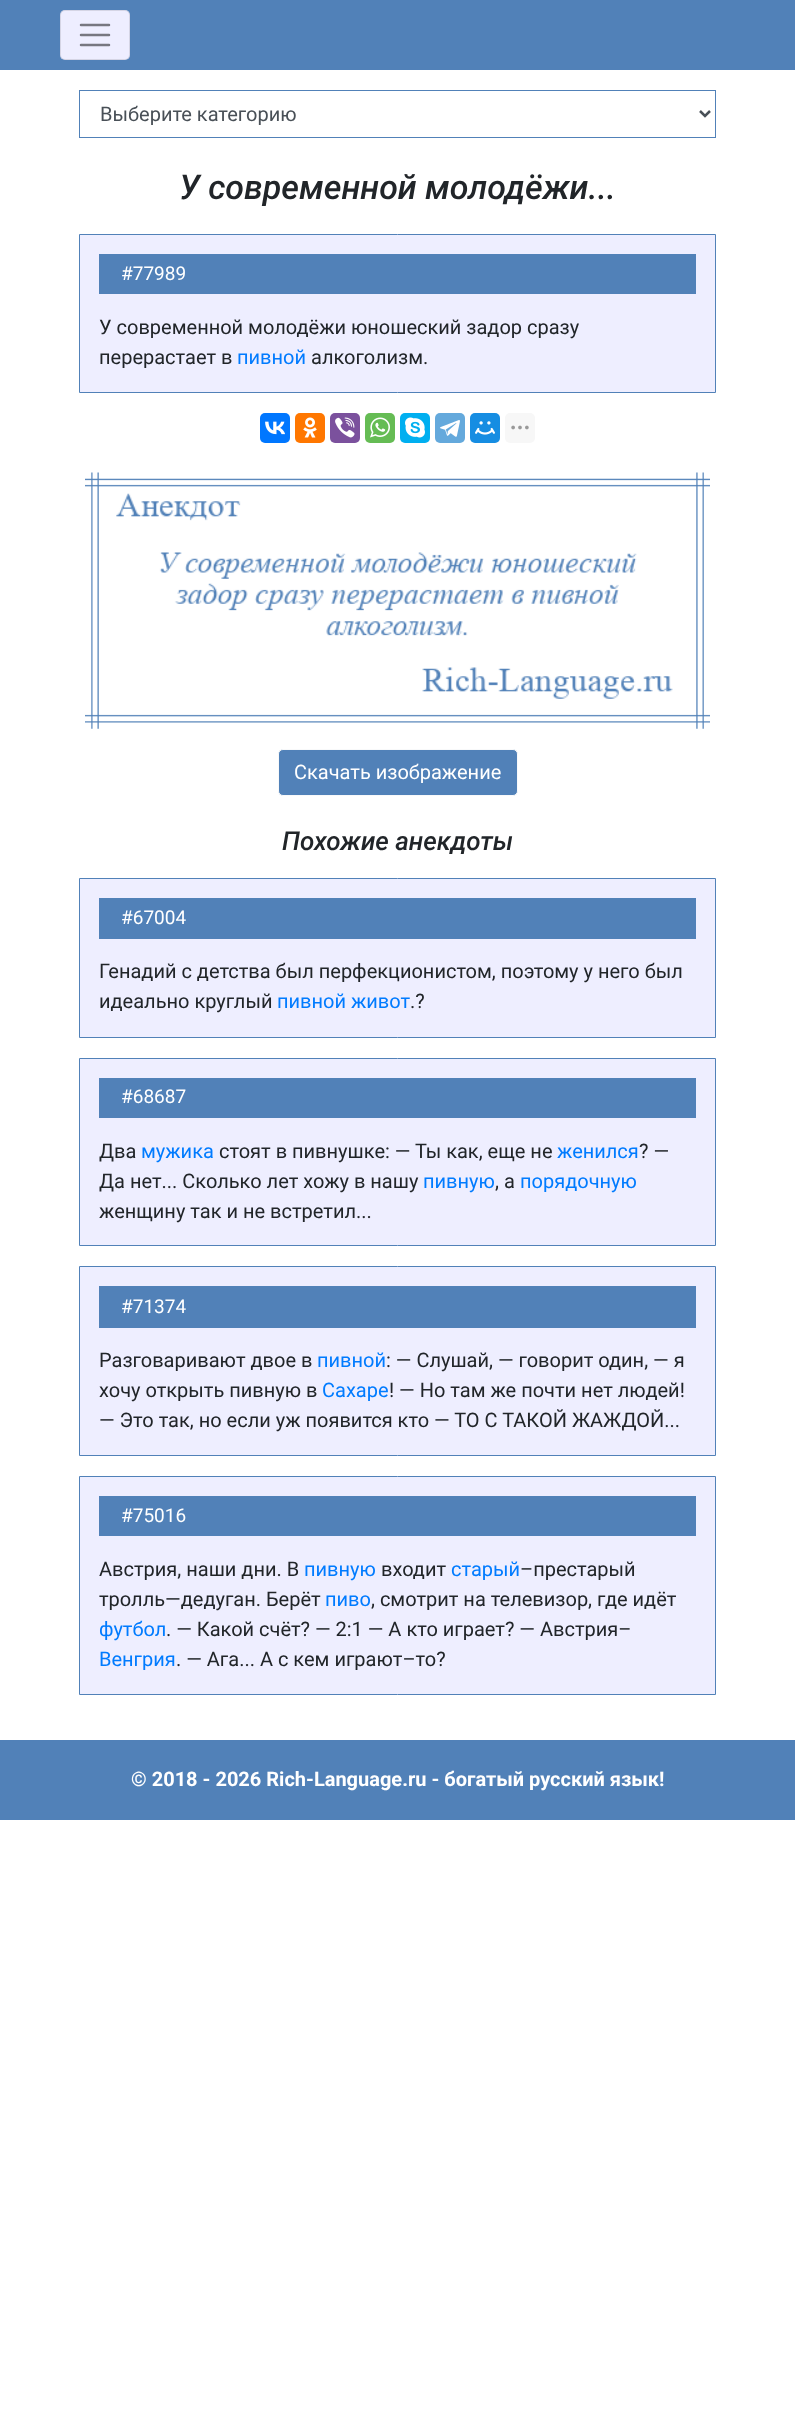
<!DOCTYPE html>
<meta charset="utf-8">
<style>body { margin: 0 } canvas { display: block }</style>
<canvas id="canvas" width="795" height="2424"></canvas>
<img id="img1" src="images/1.png" hidden>
<img id="img2" src="images/2.png" hidden>
<img id="img3" src="images/3.png" hidden>
<img id="img4" src="images/4.png" hidden>
<img id="img5" src="images/5.png" hidden>
<img id="img6" src="images/6.png" hidden>
<img id="img7" src="images/7.png" hidden>
<img id="img8" src="images/8.png" hidden>
<img id="img9" src="images/9.png" hidden>
<script>
window.onload = function () {
    const canvas = document.getElementById('canvas');
    const context = canvas.getContext('2d');
    context.miterLimit = 4;
    context.fontKerning = 'normal';

    context.fillStyle = 'rgb(255, 255, 255)';
    context.fillRect(0, 0, 795, 2424);
    context.fillStyle = 'rgb(81, 129, 184)';
    context.fillRect(0, 0, 795, 70);
    context.fillStyle = 'rgb(238, 238, 255)';
    context.beginPath();
    context.roundRect(60, 10, 70, 50, 5);
    context.fill();
    context.beginPath();
    context.roundRect(60.5, 10.5, 69, 49, 4.5);
    context.strokeStyle = 'rgba(0, 0, 0, 0.1)';
    context.stroke();
    context.beginPath();
    context.moveTo(81, 25);
    context.lineTo(109, 25);
    context.moveTo(81, 35);
    context.lineTo(109, 35);
    context.moveTo(81, 45);
    context.lineTo(109, 45);
    context.strokeStyle = 'rgb(119, 119, 128)';
    context.lineWidth = 2.5;
    context.lineCap = 'round';
    context.stroke();
    context.strokeStyle = 'rgb(81, 129, 184)';
    context.lineWidth = 1;
    context.strokeRect(79.5, 90.5, 636, 47);
    context.beginPath();
    context.moveTo(700, 111);
    context.lineTo(705, 116);
    context.lineTo(710, 111);
    context.strokeStyle = 'rgb(73, 80, 87)';
    context.lineWidth = 2.5;
    context.lineCap = 'butt';
    context.stroke();
    context.beginPath();
    context.rect(79.5, 234.5, 636, 158);
    context.fill();
    context.strokeStyle = 'rgb(81, 129, 184)';
    context.lineWidth = 1;
    context.stroke();
    context.fillStyle = 'rgb(81, 129, 184)';
    context.fillRect(99, 254, 597, 40);
    context.fillStyle = 'rgb(0, 119, 255)';
    context.beginPath();
    context.roundRect(260, 413, 30, 30, 5);
    context.fill();
    context.drawImage(document.getElementById('img1'), 265, 421, 20, 14);
    context.fillStyle = 'rgb(255, 119, 0)';
    context.beginPath();
    context.roundRect(295, 413, 30, 30, 5);
    context.fill();
    context.drawImage(document.getElementById('img2'), 303, 417, 14, 21);
    context.fillStyle = 'rgb(123, 81, 157)';
    context.beginPath();
    context.roundRect(330, 413, 30, 30, 5);
    context.fill();
    context.drawImage(document.getElementById('img3'), 335, 417, 20, 21);
    context.fillStyle = 'rgb(101, 188, 84)';
    context.beginPath();
    context.roundRect(365, 413, 30, 30, 5);
    context.fill();
    context.drawImage(document.getElementById('img4'), 370, 417, 20, 21);
    context.fillStyle = 'rgb(0, 175, 240)';
    context.beginPath();
    context.roundRect(400, 413, 30, 30, 5);
    context.fill();
    context.drawImage(document.getElementById('img5'), 405, 417, 20, 21);
    context.fillStyle = 'rgb(100, 169, 220)';
    context.beginPath();
    context.roundRect(435, 413, 30, 30, 5);
    context.fill();
    context.drawImage(document.getElementById('img6'), 440, 420, 20, 17);
    context.fillStyle = 'rgb(22, 141, 226)';
    context.beginPath();
    context.roundRect(470, 413, 30, 30, 5);
    context.fill();
    context.drawImage(document.getElementById('img7'), 475, 421, 20, 14);
    context.fillStyle = 'rgb(247, 247, 247)';
    context.beginPath();
    context.roundRect(505, 413, 30, 30, 5);
    context.fill();
    context.drawImage(document.getElementById('img8'), 511, 425, 18, 5);
    context.drawImage(document.getElementById('img9'), 85, 472, 625, 257);
    context.fillStyle = 'rgb(81, 129, 184)';
    context.beginPath();
    context.roundRect(278.5, 749.5, 239, 46, 4.5);
    context.fill();
    context.strokeStyle = 'rgb(248, 249, 250)';
    context.stroke();
    context.fillStyle = 'rgb(238, 238, 255)';
    context.beginPath();
    context.rect(79.5, 878.5, 636, 159);
    context.fill();
    context.strokeStyle = 'rgb(81, 129, 184)';
    context.stroke();
    context.fillStyle = 'rgb(81, 129, 184)';
    context.fillRect(99, 898, 597, 41);
    context.fillStyle = 'rgb(238, 238, 255)';
    context.beginPath();
    context.rect(79.5, 1058.5, 636, 187);
    context.fill();
    context.stroke();
    context.fillStyle = 'rgb(81, 129, 184)';
    context.fillRect(99, 1078, 597, 40);
    context.fillStyle = 'rgb(238, 238, 255)';
    context.beginPath();
    context.rect(79.5, 1266.5, 636, 189);
    context.fill();
    context.stroke();
    context.fillStyle = 'rgb(81, 129, 184)';
    context.fillRect(99, 1286, 597, 42);
    context.fillStyle = 'rgb(238, 238, 255)';
    context.beginPath();
    context.rect(79.5, 1476.5, 636, 218);
    context.fill();
    context.stroke();
    context.fillStyle = 'rgb(81, 129, 184)';
    context.fillRect(99, 1496, 597, 40);
    context.fillRect(0, 1740, 795, 80);
    context.font = '20px Roboto';
    context.fillStyle = 'rgb(73, 80, 87)';
    context.fillText('Выберите категорию', 100, 121);
    context.font = 'italic 500 34px Roboto';
    context.fillStyle = 'rgb(33, 37, 41)';
    context.fillText('У современной молодёжи...', 179, 199);
    context.font = '19px Roboto';
    context.fillStyle = 'rgb(255, 255, 255)';
    context.fillText('#77989', 121, 280);
    context.font = '20px Roboto';
    context.fillStyle = 'rgb(33, 37, 41)';
    context.fillText('У современной молодёжи юношеский задор сразу', 99, 334);
    context.fillText('перерастает в', 99, 364);
    context.fillStyle = 'rgb(0, 123, 255)';
    context.fillText('пивной', 237, 364);
    context.fillStyle = 'rgb(33, 37, 41)';
    context.fillText('алкоголизм.', 311, 364);
    context.fillStyle = 'rgb(255, 255, 255)';
    context.fillText('Скачать изображение', 294, 779);
    context.font = 'italic 500 26px Roboto';
    context.fillStyle = 'rgb(33, 37, 41)';
    context.fillText('Похожие анекдоты', 282, 850);
    context.font = '19px Roboto';
    context.fillStyle = 'rgb(255, 255, 255)';
    context.fillText('#67004', 121, 924);
    context.font = '20px Roboto';
    context.fillStyle = 'rgb(33, 37, 41)';
    context.fillText('Генадий с детства был перфекционистом, поэтому у него был', 99, 978);
    context.fillText('идеально круглый', 99, 1008);
    context.fillStyle = 'rgb(0, 123, 255)';
    context.fillText('пивной живот', 277, 1008);
    context.fillStyle = 'rgb(33, 37, 41)';
    context.fillText('.?', 410, 1008);
    context.font = '19px Roboto';
    context.fillStyle = 'rgb(255, 255, 255)';
    context.fillText('#68687', 121, 1103);
    context.font = '20px Roboto';
    context.fillStyle = 'rgb(33, 37, 41)';
    context.fillText('Два', 99, 1158);
    context.fillStyle = 'rgb(0, 123, 255)';
    context.fillText('мужика', 141, 1158);
    context.fillStyle = 'rgb(33, 37, 41)';
    context.fillText('стоят в пивнушке: — Ты как, еще не', 219, 1158);
    context.fillStyle = 'rgb(0, 123, 255)';
    context.fillText('женился', 557, 1158);
    context.fillStyle = 'rgb(33, 37, 41)';
    context.fillText('? —', 639, 1158);
    context.fillText('Да нет... Сколько лет хожу в нашу', 99, 1188);
    context.fillStyle = 'rgb(0, 123, 255)';
    context.fillText('пивную', 423, 1188);
    context.fillStyle = 'rgb(33, 37, 41)';
    context.fillText(', а', 495, 1188);
    context.fillStyle = 'rgb(0, 123, 255)';
    context.fillText('порядочную', 520, 1188);
    context.fillStyle = 'rgb(33, 37, 41)';
    context.fillText('женщину так и не встретил...', 99, 1218);
    context.font = '19px Roboto';
    context.fillStyle = 'rgb(255, 255, 255)';
    context.fillText('#71374', 121, 1313);
    context.font = '20px Roboto';
    context.fillStyle = 'rgb(33, 37, 41)';
    context.fillText('Разговаривают двое в', 99, 1367);
    context.fillStyle = 'rgb(0, 123, 255)';
    context.fillText('пивной', 317, 1367);
    context.fillStyle = 'rgb(33, 37, 41)';
    context.fillText(': — Слушай, — говорит один, — я', 386, 1367);
    context.fillText('хочу открыть пивную в', 99, 1397);
    context.fillStyle = 'rgb(0, 123, 255)';
    context.fillText('Сахаре', 322, 1397);
    context.fillStyle = 'rgb(33, 37, 41)';
    context.fillText('! — Но там же почти нет людей!', 389, 1397);
    context.fillText('— Это так, но если уж появится кто — ТО С ТАКОЙ ЖАЖДОЙ...', 99, 1427);
    context.font = '19px Roboto';
    context.fillStyle = 'rgb(255, 255, 255)';
    context.fillText('#75016', 121, 1522);
    context.font = '20px Roboto';
    context.fillStyle = 'rgb(33, 37, 41)';
    context.fillText('Австрия, наши дни. В', 99, 1576);
    context.fillStyle = 'rgb(0, 123, 255)';
    context.fillText('пивную', 304, 1576);
    context.fillStyle = 'rgb(33, 37, 41)';
    context.fillText('входит', 381, 1576);
    context.fillStyle = 'rgb(0, 123, 255)';
    context.fillText('старый', 451, 1576);
    context.fillStyle = 'rgb(33, 37, 41)';
    context.fillText('–престарый', 520, 1576);
    context.fillText('тролль—дедуган. Берёт', 99, 1606);
    context.fillStyle = 'rgb(0, 123, 255)';
    context.fillText('пиво', 325, 1606);
    context.fillStyle = 'rgb(33, 37, 41)';
    context.fillText(', смотрит на телевизор, где идёт', 371, 1606);
    context.fillStyle = 'rgb(0, 123, 255)';
    context.fillText('футбол', 99, 1636);
    context.fillStyle = 'rgb(33, 37, 41)';
    context.fillText('. — Какой счёт? — 2:1 — А кто играет? — Австрия–', 166, 1636);
    context.fillStyle = 'rgb(0, 123, 255)';
    context.fillText('Венгрия', 99, 1666);
    context.fillStyle = 'rgb(33, 37, 41)';
    context.fillText('. — Ага... А с кем играют–то?', 176, 1666);
    context.font = 'bold 20px Roboto';
    context.fillStyle = 'rgb(255, 255, 255)';
    context.fillText('© 2018 - 2026 Rich-Language.ru - богатый русский язык!', 131, 1786);
};
</script>
